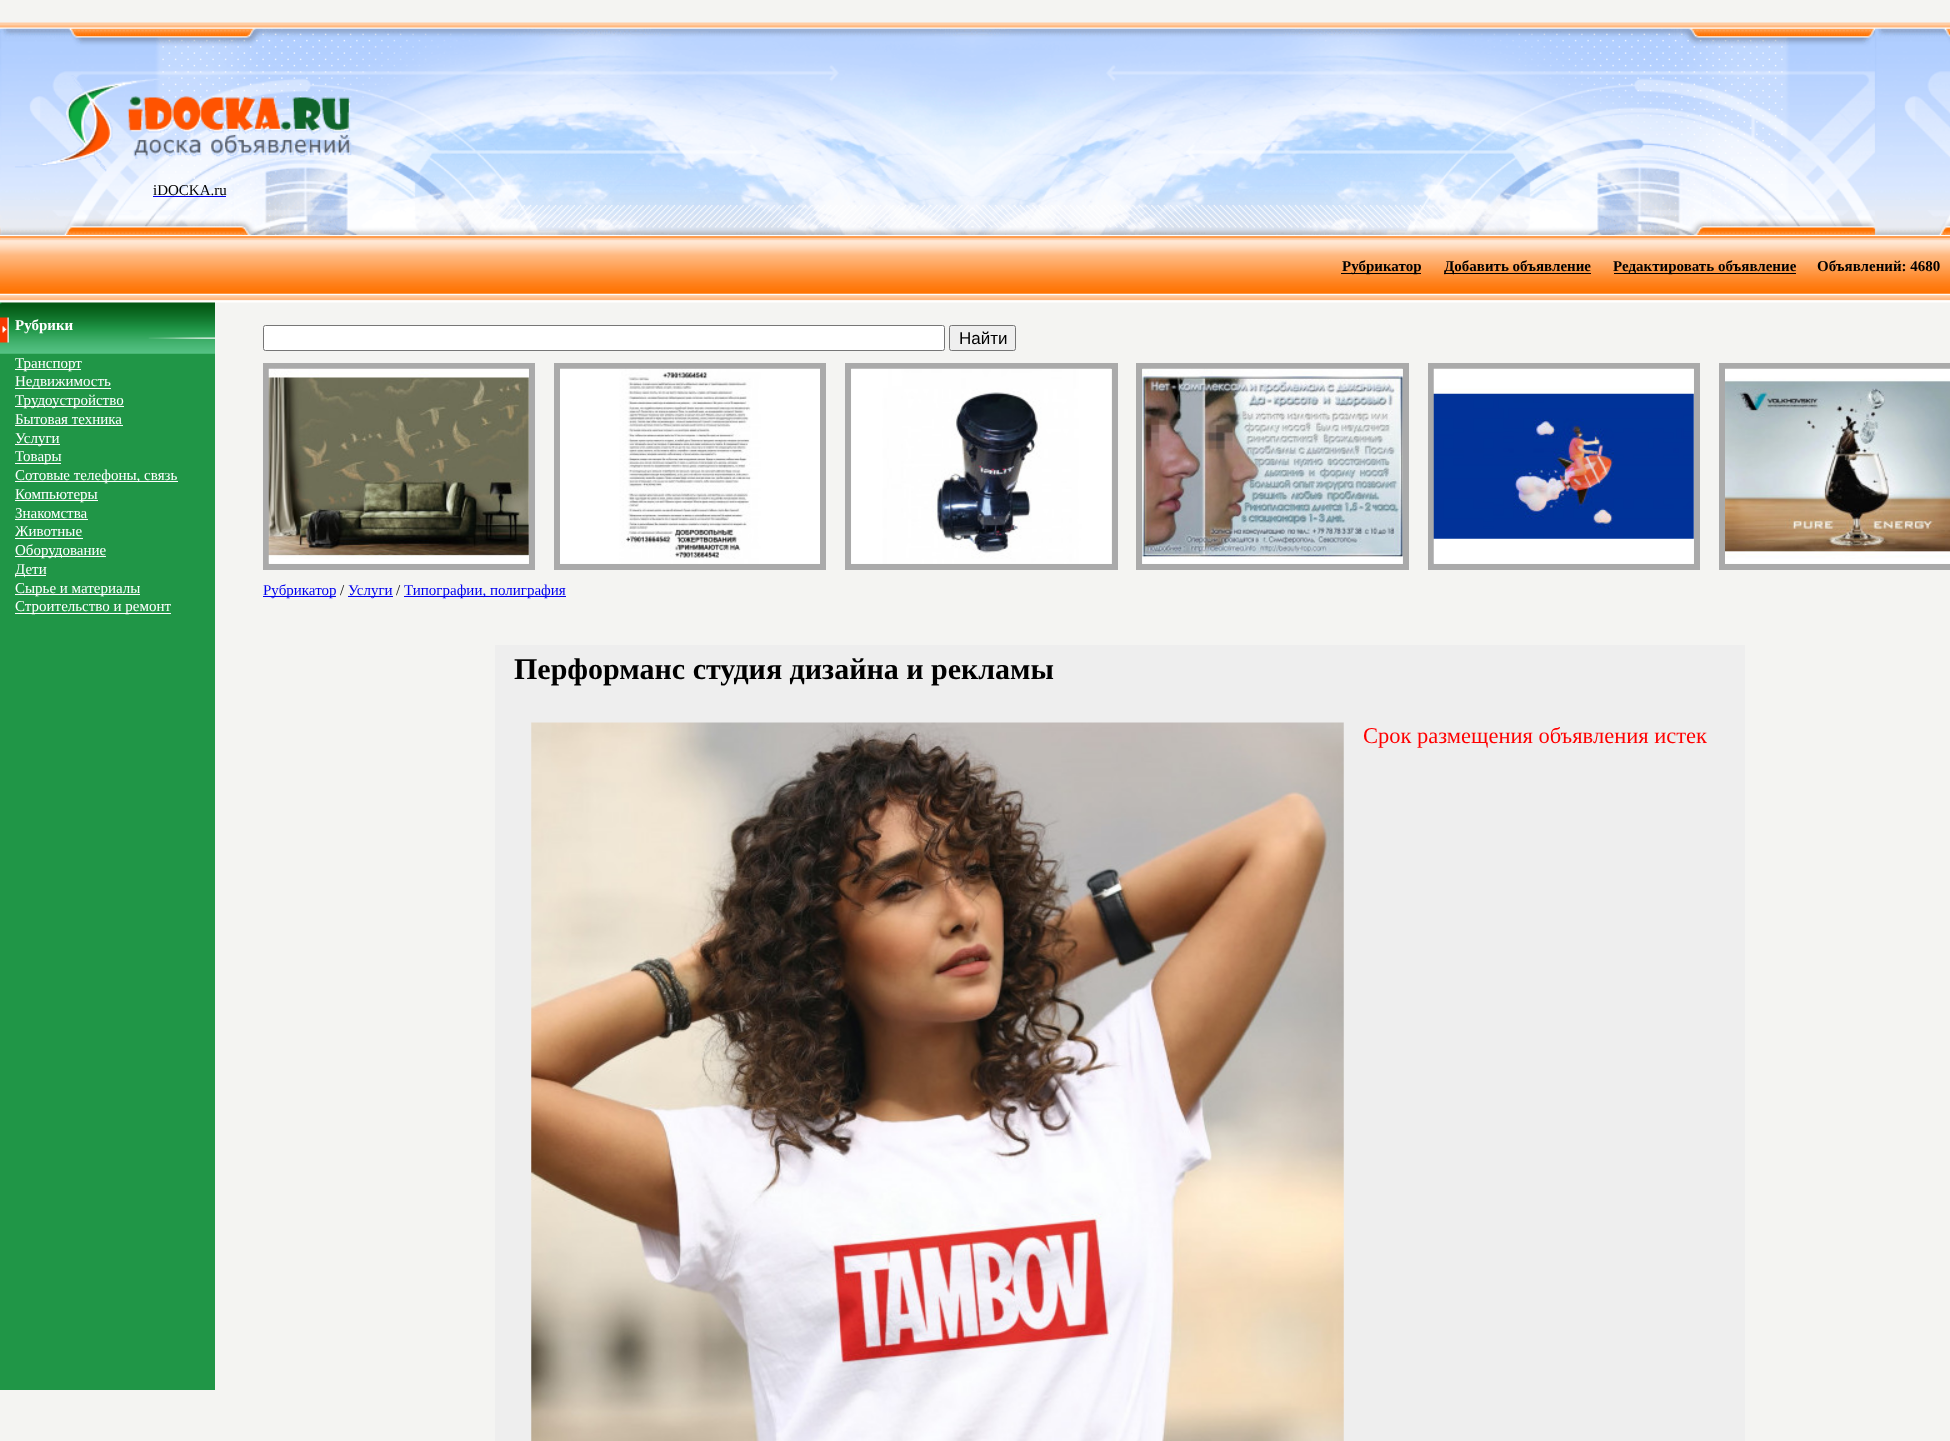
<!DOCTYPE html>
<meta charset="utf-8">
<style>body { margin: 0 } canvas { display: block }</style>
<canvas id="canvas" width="1950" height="1441"></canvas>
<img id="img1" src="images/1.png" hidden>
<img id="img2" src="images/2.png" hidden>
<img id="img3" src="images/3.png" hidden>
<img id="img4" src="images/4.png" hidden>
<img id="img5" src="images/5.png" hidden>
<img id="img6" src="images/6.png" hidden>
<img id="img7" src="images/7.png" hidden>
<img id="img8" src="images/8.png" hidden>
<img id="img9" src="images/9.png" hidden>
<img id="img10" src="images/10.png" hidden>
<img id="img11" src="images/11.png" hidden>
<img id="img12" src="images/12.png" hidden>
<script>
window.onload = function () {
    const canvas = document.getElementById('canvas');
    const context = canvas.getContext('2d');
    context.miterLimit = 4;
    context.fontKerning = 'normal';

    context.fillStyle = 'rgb(244, 244, 242)';
    context.fillRect(0, 0, 1950, 1441);
    context.drawImage(document.getElementById('img1'), 0, 22, 1950, 7);
    context.drawImage(document.getElementById('img2'), 0, 28, 1950, 207);
    context.drawImage(document.getElementById('img3'), 15, 75, 337, 97);
    context.fillStyle = 'rgb(0, 0, 238)';
    context.fillRect(153, 196, 73, 1);
    context.drawImage(document.getElementById('img4'), 0, 235, 1950, 68);
    context.fillStyle = 'rgb(0, 0, 0)';
    context.fillRect(1341, 273, 80, 1);
    context.fillRect(1444, 273, 147, 1);
    context.fillRect(1614, 273, 182, 1);
    context.fillStyle = 'rgb(32, 150, 71)';
    context.fillRect(0, 353, 215, 1037);
    context.drawImage(document.getElementById('img5'), 0, 302, 215, 52);
    context.fillStyle = 'rgb(255, 255, 255)';
    context.fillRect(15, 369, 66, 1);
    context.fillRect(15, 388, 96, 1);
    context.fillRect(15, 406, 109, 1);
    context.fillRect(15, 425, 108, 1);
    context.fillRect(15, 444, 45, 1);
    context.fillRect(15, 463, 46, 1);
    context.fillRect(15, 481, 163, 1);
    context.fillRect(15, 500, 83, 1);
    context.fillRect(15, 519, 73, 1);
    context.fillRect(15, 538, 68, 1);
    context.fillRect(15, 556, 91, 1);
    context.fillRect(15, 575, 31, 1);
    context.fillRect(15, 594, 125, 1);
    context.fillRect(15, 613, 156, 1);
    context.beginPath();
    context.roundRect(263.5, 325.5, 681, 25, 2);
    context.fill();
    context.strokeStyle = 'rgb(118, 118, 118)';
    context.stroke();
    context.fillStyle = 'rgb(239, 239, 239)';
    context.beginPath();
    context.roundRect(949.5, 325.5, 66, 25, 2);
    context.fill();
    context.stroke();
    context.strokeStyle = 'rgb(170, 170, 170)';
    context.lineWidth = 6;
    context.strokeRect(266, 366, 266, 201);
    context.drawImage(document.getElementById('img6'), 268, 368, 261, 196);
    context.strokeRect(557, 366, 266, 201);
    context.drawImage(document.getElementById('img7'), 560, 368, 260, 196);
    context.strokeRect(848, 366, 267, 201);
    context.drawImage(document.getElementById('img8'), 851, 368, 261, 196);
    context.strokeRect(1139, 366, 267, 201);
    context.drawImage(document.getElementById('img9'), 1142, 368, 261, 196);
    context.strokeRect(1431, 366, 266, 201);
    context.drawImage(document.getElementById('img10'), 1433, 368, 261, 196);
    context.strokeRect(1722, 366, 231, 201);
    context.drawImage(document.getElementById('img11'), 1725, 368, 225, 196);
    context.fillStyle = 'rgb(0, 0, 238)';
    context.fillRect(263, 596, 73, 1);
    context.fillRect(348, 596, 45, 1);
    context.fillRect(404, 596, 162, 1);
    context.fillStyle = 'rgb(238, 238, 238)';
    context.fillRect(495, 645, 1250, 796);
    context.drawImage(document.getElementById('img12'), 531, 722, 813, 719);
    context.font = '15px Liberation Serif';
    context.fillStyle = 'rgb(0, 0, 0)';
    context.fillText('iDOCKA.ru', 153, 195);
    context.font = 'bold 15px Liberation Serif';
    context.fillText('Рубрикатор', 1342, 271);
    context.fillText('Добавить объявление', 1444, 271);
    context.fillText('Редактировать объявление', 1613, 271);
    context.fillText('Объявлений: 4680', 1817, 271);
    context.fillStyle = 'rgb(255, 255, 255)';
    context.fillText('Рубрики', 15, 330);
    context.font = '15px Liberation Serif';
    context.fillText('Транспорт', 15, 368);
    context.fillText('Недвижимость', 15, 386);
    context.fillText('Трудоустройство', 15, 405);
    context.fillText('Бытовая техника', 15, 424);
    context.fillText('Услуги', 15, 443);
    context.fillText('Товары', 15, 461);
    context.fillText('Сотовые телефоны, связь', 15, 480);
    context.fillText('Компьютеры', 15, 499);
    context.fillText('Знакомства', 15, 518);
    context.fillText('Животные', 15, 536);
    context.fillText('Оборудование', 15, 555);
    context.fillText('Дети', 15, 574);
    context.fillText('Сырье и материалы', 15, 593);
    context.fillText('Строительство и ремонт', 15, 611);
    context.font = '17px Liberation Sans';
    context.fillStyle = 'rgb(0, 0, 0)';
    context.fillText('Найти', 959, 344);
    context.font = '15px Liberation Serif';
    context.fillStyle = 'rgb(0, 0, 238)';
    context.fillText('Рубрикатор', 263, 595);
    context.fillStyle = 'rgb(0, 0, 0)';
    context.fillText('/', 340, 595);
    context.fillStyle = 'rgb(0, 0, 238)';
    context.fillText('Услуги', 348, 595);
    context.fillStyle = 'rgb(0, 0, 0)';
    context.fillText('/', 396, 595);
    context.fillStyle = 'rgb(0, 0, 238)';
    context.fillText('Типографии, полиграфия', 404, 595);
    context.font = 'bold 30px Liberation Serif';
    context.fillStyle = 'rgb(0, 0, 0)';
    context.fillText('Перформанс студия дизайна и рекламы', 514, 679);
    context.font = '22.5px Liberation Serif';
    context.fillStyle = 'rgb(255, 0, 0)';
    context.fillText('Срок размещения объявления истек', 1363, 743);
};
</script>
